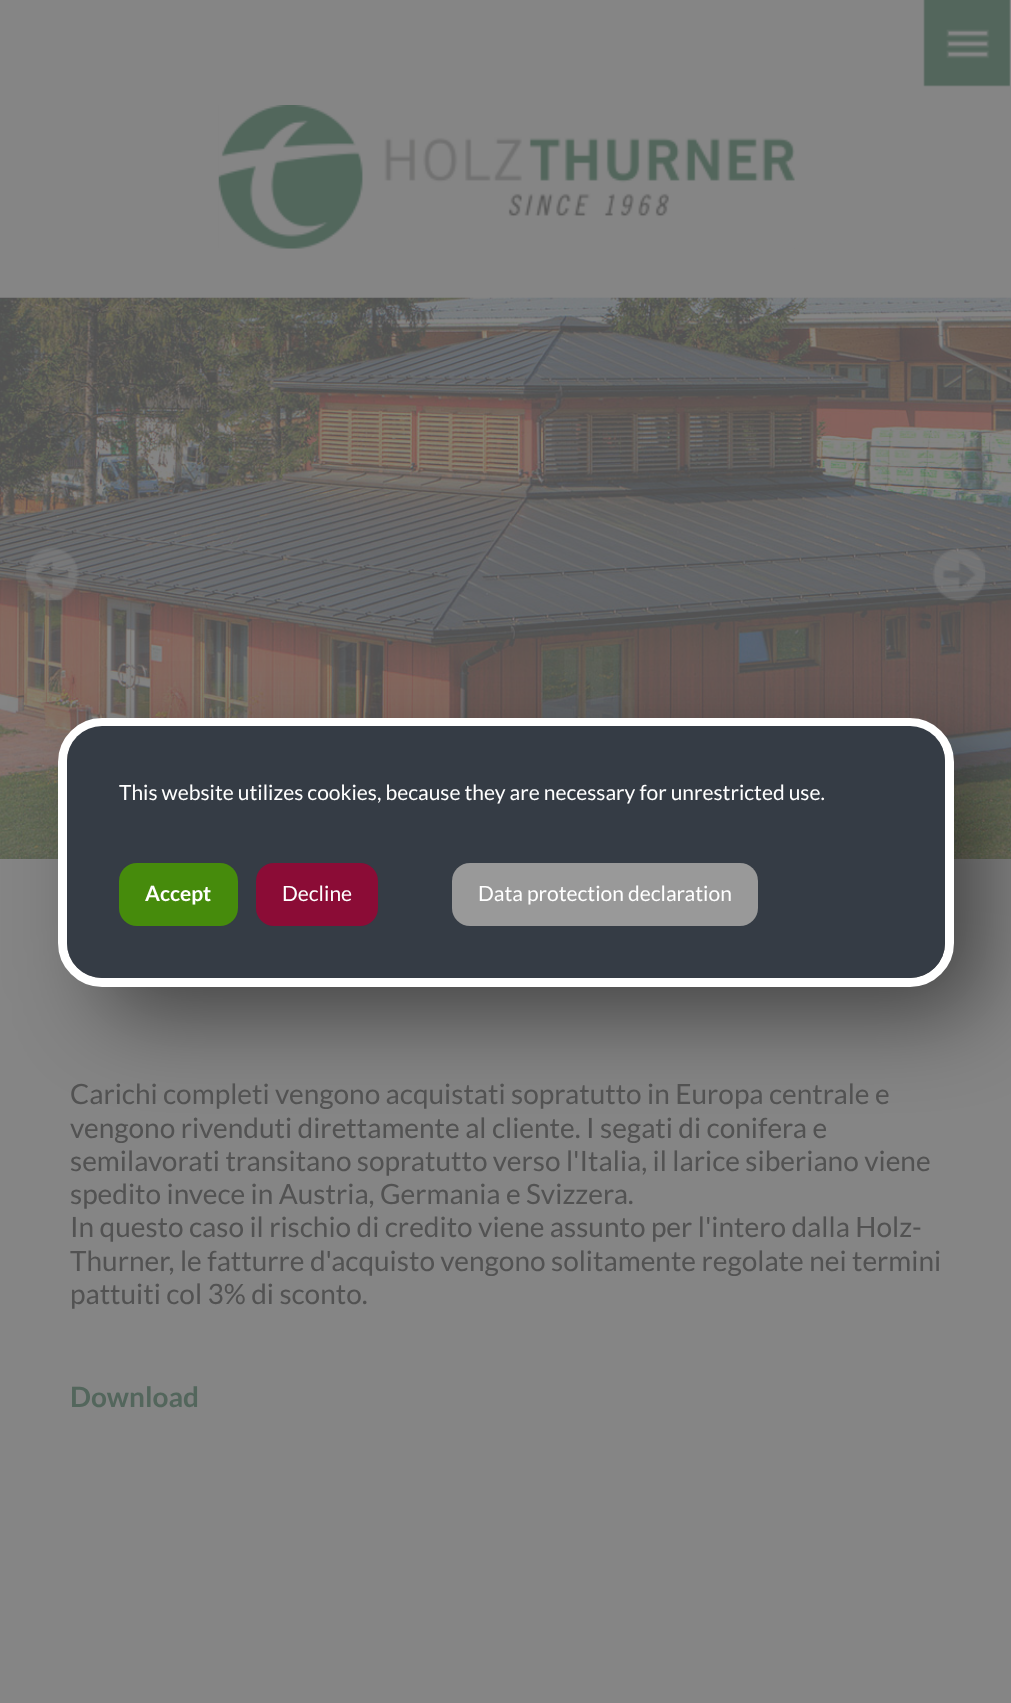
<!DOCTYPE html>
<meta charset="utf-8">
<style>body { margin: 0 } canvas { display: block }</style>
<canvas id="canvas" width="1011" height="1703"></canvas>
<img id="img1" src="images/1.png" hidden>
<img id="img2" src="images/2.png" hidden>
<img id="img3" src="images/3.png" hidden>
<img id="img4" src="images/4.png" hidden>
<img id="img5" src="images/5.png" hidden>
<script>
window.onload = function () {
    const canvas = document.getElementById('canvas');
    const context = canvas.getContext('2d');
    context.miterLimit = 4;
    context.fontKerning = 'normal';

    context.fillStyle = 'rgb(133, 133, 133)';
    context.fillRect(0, 0, 1011, 1703);
    context.drawImage(document.getElementById('img1'), 923, 0, 87, 87);
    context.drawImage(document.getElementById('img2'), 218, 105, 577, 144);
    context.drawImage(document.getElementById('img3'), 0, 297, 1011, 562);
    context.drawImage(document.getElementById('img4'), 26, 547, 53, 54);
    context.drawImage(document.getElementById('img5'), 932, 547, 54, 54);
    context.fillStyle = 'rgba(82, 82, 82, 0.2)';
    context.filter = 'blur(4.5px)';
    context.beginPath();
    context.rect(2, 861, 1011, 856);
    context.fill();
    context.filter = 'none';
    context.fillStyle = 'rgb(133, 133, 133)';
    context.fillRect(0, 859, 1011, 844);
    context.fillStyle = 'rgba(0, 0, 0, 0.5)';
    context.filter = 'blur(44px)';
    context.beginPath();
    context.roundRect(102, 761, 878, 252, 35);
    context.fill();
    context.filter = 'none';
    context.beginPath();
    context.roundRect(62.5, 722.5, 887, 260, 39.5);
    context.strokeStyle = 'rgb(255, 255, 255)';
    context.lineWidth = 9;
    context.stroke();
    context.fillStyle = 'rgb(53, 60, 69)';
    context.beginPath();
    context.roundRect(67, 726, 878, 252, 35);
    context.fill();
    context.fillStyle = 'rgb(70, 139, 12)';
    context.beginPath();
    context.roundRect(119, 863, 119, 63, 18);
    context.fill();
    context.fillStyle = 'rgb(139, 12, 54)';
    context.beginPath();
    context.roundRect(256, 863, 122, 63, 18);
    context.fill();
    context.fillStyle = 'rgb(153, 153, 153)';
    context.beginPath();
    context.roundRect(452, 863, 306, 63, 18);
    context.fill();
    context.font = '21px Lato';
    context.fillStyle = 'rgb(255, 255, 255)';
    context.fillText('This website utilizes cookies, because they are necessary for unrestricted use.', 119, 800);
    context.font = 'bold 21px Lato';
    context.fillText('Accept', 145, 901);
    context.font = '21px Lato';
    context.fillText('Decline', 282, 901);
    context.fillText('Data protection declaration', 478, 901);
    context.font = '28px Lato';
    context.fillStyle = 'rgb(82, 82, 82)';
    context.fillText('Carichi completi vengono acquistati sopratutto in Europa centrale e', 70, 1104);
    context.fillText('vengono rivenduti direttamente al cliente. I segati di conifera e', 70, 1138);
    context.fillText('semilavorati transitano sopratutto verso l\'Italia, il larice siberiano viene', 70, 1171);
    context.fillText('spedito invece in Austria, Germania e Svizzera.', 70, 1204);
    context.fillText('In questo caso il rischio di credito viene assunto per l\'intero dalla Holz-', 70, 1237);
    context.fillText('Thurner, le fatturre d\'acquisto vengono solitamente regolate nei termini', 70, 1271);
    context.fillText('pattuiti col 3% di sconto.', 70, 1304);
    context.font = 'bold 28px Lato';
    context.fillStyle = 'rgb(83, 102, 92)';
    context.fillText('Download', 70, 1407);
};
</script>
